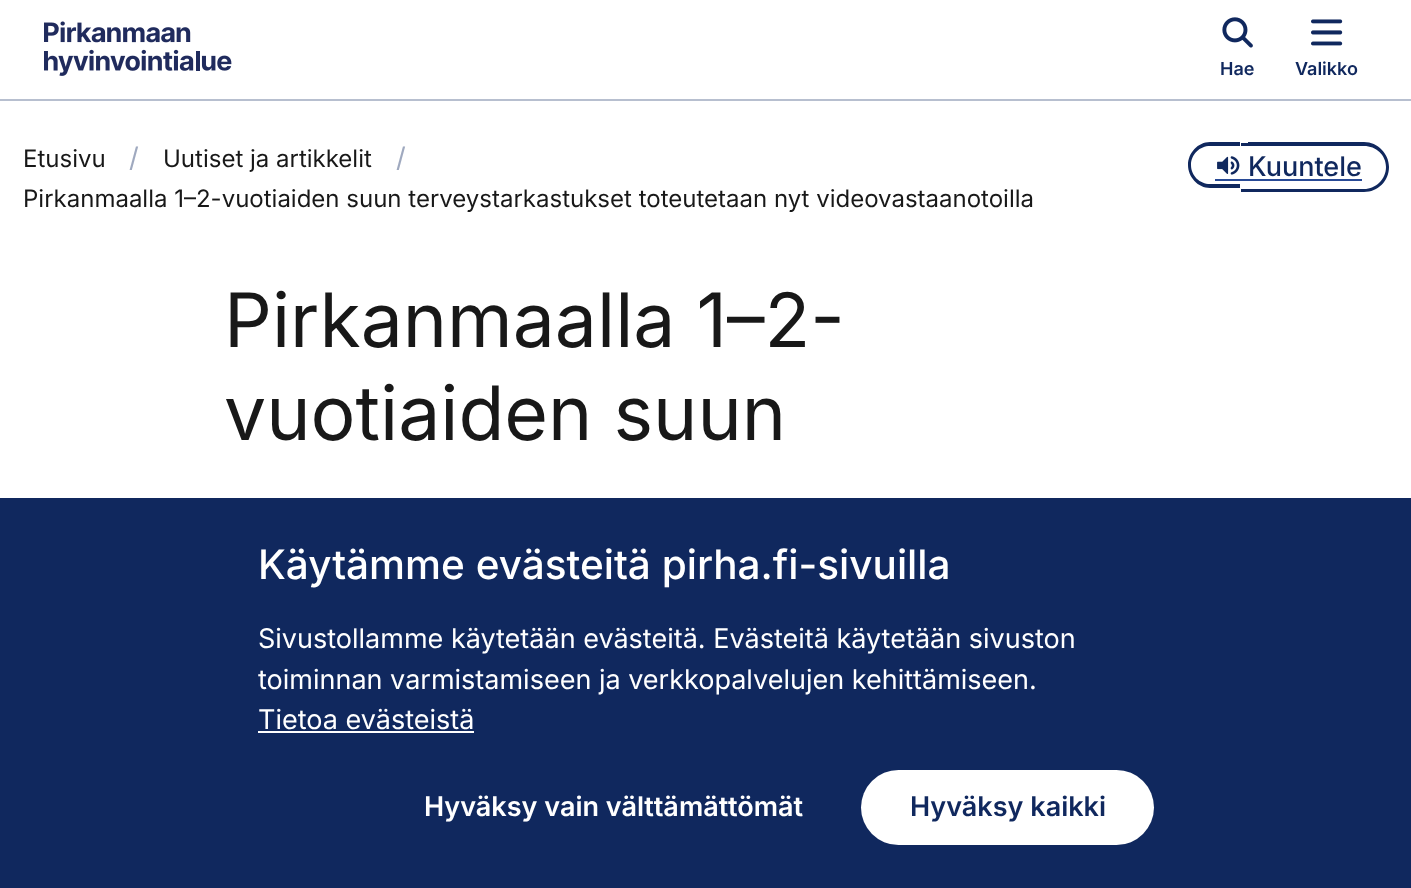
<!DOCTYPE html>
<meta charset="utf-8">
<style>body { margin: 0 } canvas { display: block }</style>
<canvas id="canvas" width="1411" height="888"></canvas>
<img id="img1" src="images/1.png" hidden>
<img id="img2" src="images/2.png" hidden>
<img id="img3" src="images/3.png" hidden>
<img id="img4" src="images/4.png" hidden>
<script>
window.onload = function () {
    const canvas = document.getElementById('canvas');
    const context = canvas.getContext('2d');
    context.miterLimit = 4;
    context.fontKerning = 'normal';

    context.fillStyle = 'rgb(255, 255, 255)';
    context.fillRect(0, 0, 1411, 888);
    context.fillStyle = 'rgb(183, 191, 207)';
    context.fillRect(0, 99, 1411, 2);
    context.drawImage(document.getElementById('img1'), 44, 21, 188, 55);
    context.drawImage(document.getElementById('img2'), 1222, 17, 31, 31);
    context.drawImage(document.getElementById('img3'), 1311, 19, 32, 27);
    context.fillStyle = 'rgb(16, 40, 94)';
    context.beginPath();
    context.moveTo(1210, 142);
    context.lineTo(1240, 142);
    context.lineTo(1240, 188);
    context.lineTo(1210, 188);
    context.bezierCurveTo(1198, 188, 1188, 177, 1188, 165);
    context.bezierCurveTo(1188, 153, 1198, 142, 1210, 142);
    context.closePath();
    context.moveTo(1210, 146);
    context.lineTo(1240, 146);
    context.lineTo(1240, 184);
    context.lineTo(1210, 184);
    context.bezierCurveTo(1200, 184, 1191, 176, 1191, 165);
    context.bezierCurveTo(1191, 154, 1200, 146, 1210, 146);
    context.closePath();
    context.fill('evenodd');
    context.drawImage(document.getElementById('img4'), 1217, 156, 23, 19);
    context.fillRect(1241, 143, 7, 3);
    context.fillRect(1241, 189, 7, 3);
    context.beginPath();
    context.moveTo(1248, 142);
    context.lineTo(1364, 142);
    context.bezierCurveTo(1378, 142, 1389, 154, 1389, 167);
    context.bezierCurveTo(1389, 181, 1378, 192, 1364, 192);
    context.lineTo(1248, 192);
    context.closePath();
    context.moveTo(1248, 146);
    context.lineTo(1364, 146);
    context.bezierCurveTo(1376, 146, 1386, 155, 1386, 167);
    context.bezierCurveTo(1386, 179, 1376, 189, 1364, 189);
    context.lineTo(1248, 189);
    context.closePath();
    context.fill('evenodd');
    context.fillStyle = 'rgb(40, 74, 150)';
    context.fillRect(1215, 179, 147, 2);
    context.fillStyle = 'rgb(16, 40, 94)';
    context.fillRect(0, 498, 1411, 390);
    context.fillStyle = 'rgb(255, 255, 255)';
    context.fillRect(258, 731, 216, 2);
    context.beginPath();
    context.roundRect(861, 770, 293, 75, 37.5);
    context.fill();
    context.font = '600 18px Inter';
    context.fillStyle = 'rgb(16, 40, 94)';
    context.fillText('Hae', 1220, 75);
    context.fillText('Valikko', 1295, 75);
    context.font = '24px Inter';
    context.fillStyle = 'rgb(24, 24, 24)';
    context.fillText('Etusivu', 23, 167);
    context.font = '27px Inter';
    context.fillStyle = 'rgb(159, 169, 191)';
    context.fillText('/', 129, 167);
    context.font = '24px Inter';
    context.fillStyle = 'rgb(24, 24, 24)';
    context.fillText('Uutiset ja artikkelit', 163, 167);
    context.font = '27px Inter';
    context.fillStyle = 'rgb(159, 169, 191)';
    context.fillText('/', 396, 167);
    context.font = '24px Inter';
    context.fillStyle = 'rgb(24, 24, 24)';
    context.fillText('Pirkanmaalla 1–2-vuotiaiden suun terveystarkastukset toteutetaan nyt videovastaanotoilla', 23, 207);
    context.font = '500 27px Inter';
    context.fillStyle = 'rgb(16, 40, 94)';
    context.fillText('Kuuntele', 1248, 176);
    context.font = '75px Inter';
    context.fillStyle = 'rgb(24, 24, 24)';
    context.fillText('Pirkanmaalla 1–2-', 224, 347);
    context.fillText('vuotiaiden suun', 224, 440);
    context.font = '500 40.5px Inter';
    context.fillStyle = 'rgb(255, 255, 255)';
    context.fillText('Käytämme evästeitä pirha.fi-sivuilla', 258, 579);
    context.font = '27px Inter';
    context.fillText('Sivustollamme käytetään evästeitä. Evästeitä käytetään sivuston', 258, 648);
    context.fillText('toiminnan varmistamiseen ja verkkopalvelujen kehittämiseen.', 258, 689);
    context.fillText('Tietoa evästeistä', 258, 729);
    context.font = '600 27px Inter';
    context.fillText('Hyväksy vain välttämättömät', 424, 816);
    context.fillStyle = 'rgb(16, 40, 94)';
    context.fillText('Hyväksy kaikki', 910, 816);
};
</script>
